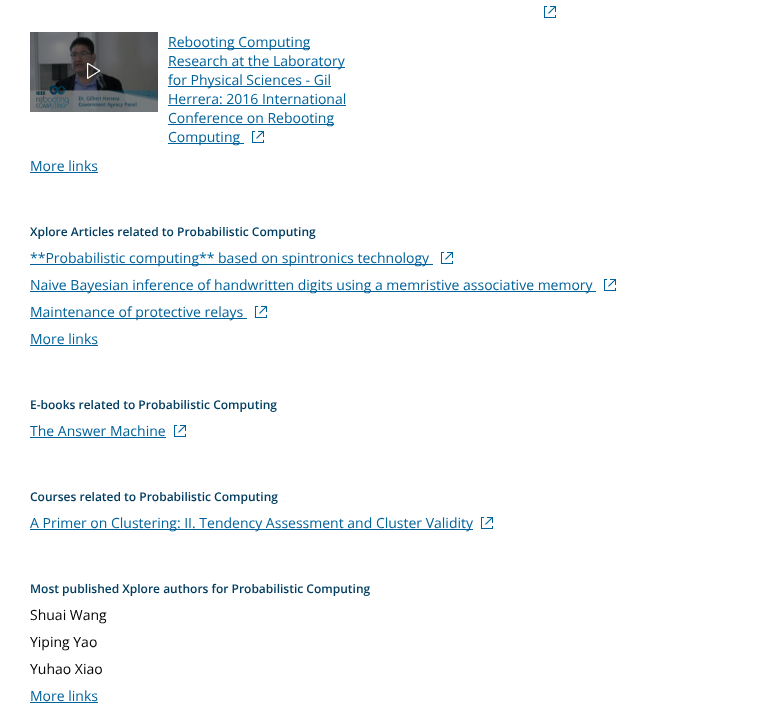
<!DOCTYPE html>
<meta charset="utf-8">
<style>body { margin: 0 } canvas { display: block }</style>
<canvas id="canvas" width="775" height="713"></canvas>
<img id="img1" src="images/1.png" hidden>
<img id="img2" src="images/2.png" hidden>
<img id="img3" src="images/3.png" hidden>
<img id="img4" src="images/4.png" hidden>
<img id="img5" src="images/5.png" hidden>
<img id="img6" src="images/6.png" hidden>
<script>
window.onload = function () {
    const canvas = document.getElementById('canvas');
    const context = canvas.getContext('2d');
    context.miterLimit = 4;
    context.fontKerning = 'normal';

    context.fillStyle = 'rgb(255, 255, 255)';
    context.fillRect(0, 0, 775, 713);
    context.drawImage(document.getElementById('img1'), 544, 6, 12, 12);
    context.drawImage(document.getElementById('img2'), 30, 32, 128, 80);
    context.drawImage(document.getElementById('img3'), 87, 62, 14, 17);
    context.fillStyle = 'rgb(0, 98, 155)';
    context.fillRect(168, 48, 142, 1);
    context.fillRect(168, 67, 177, 1);
    context.fillRect(168, 86, 163, 1);
    context.fillRect(168, 105, 178, 1);
    context.fillRect(168, 124, 166, 1);
    context.fillRect(168, 143, 76, 1);
    context.drawImage(document.getElementById('img1'), 252, 131, 12, 12);
    context.fillRect(30, 172, 68, 1);
    context.fillRect(30, 264, 403, 1);
    context.drawImage(document.getElementById('img4'), 441, 252, 12, 12);
    context.fillRect(30, 291, 566, 1);
    context.drawImage(document.getElementById('img5'), 604, 279, 12, 12);
    context.fillRect(30, 318, 217, 1);
    context.drawImage(document.getElementById('img6'), 255, 306, 12, 12);
    context.fillRect(30, 345, 68, 1);
    context.fillRect(30, 437, 136, 1);
    context.drawImage(document.getElementById('img1'), 174, 425, 12, 12);
    context.fillRect(30, 529, 443, 1);
    context.drawImage(document.getElementById('img1'), 481, 517, 12, 12);
    context.fillRect(30, 702, 68, 1);
    context.font = '14px Open Sans';
    context.fillText('Rebooting Computing', 168, 47);
    context.fillText('Research at the Laboratory', 168, 66);
    context.fillText('for Physical Sciences - Gil', 168, 85);
    context.fillText('Herrera: 2016 International', 168, 104);
    context.fillText('Conference on Rebooting', 168, 123);
    context.fillText('Computing', 168, 142);
    context.fillText('More links', 30, 171);
    context.font = '600 12px Open Sans';
    context.fillStyle = 'rgb(0, 61, 96)';
    context.fillText('Xplore Articles related to Probabilistic Computing', 30, 236);
    context.font = '14px Open Sans';
    context.fillStyle = 'rgb(0, 98, 155)';
    context.fillText('**Probabilistic computing** based on spintronics technology', 30, 263);
    context.fillText('Naive Bayesian inference of handwritten digits using a memristive associative memory', 30, 290);
    context.fillText('Maintenance of protective relays', 30, 317);
    context.fillText('More links', 30, 344);
    context.font = '600 12px Open Sans';
    context.fillStyle = 'rgb(0, 61, 96)';
    context.fillText('E-books related to Probabilistic Computing', 30, 409);
    context.font = '14px Open Sans';
    context.fillStyle = 'rgb(0, 98, 155)';
    context.fillText('The Answer Machine', 30, 436);
    context.font = '600 12px Open Sans';
    context.fillStyle = 'rgb(0, 61, 96)';
    context.fillText('Courses related to Probabilistic Computing', 30, 501);
    context.font = '14px Open Sans';
    context.fillStyle = 'rgb(0, 98, 155)';
    context.fillText('A Primer on Clustering: II. Tendency Assessment and Cluster Validity', 30, 528);
    context.font = '600 12px Open Sans';
    context.fillStyle = 'rgb(0, 61, 96)';
    context.fillText('Most published Xplore authors for Probabilistic Computing', 30, 593);
    context.font = '14px Open Sans';
    context.fillStyle = 'rgb(0, 0, 0)';
    context.fillText('Shuai Wang', 30, 620);
    context.fillText('Yiping Yao', 30, 647);
    context.fillText('Yuhao Xiao', 30, 674);
    context.fillStyle = 'rgb(0, 98, 155)';
    context.fillText('More links', 30, 701);
};
</script>
